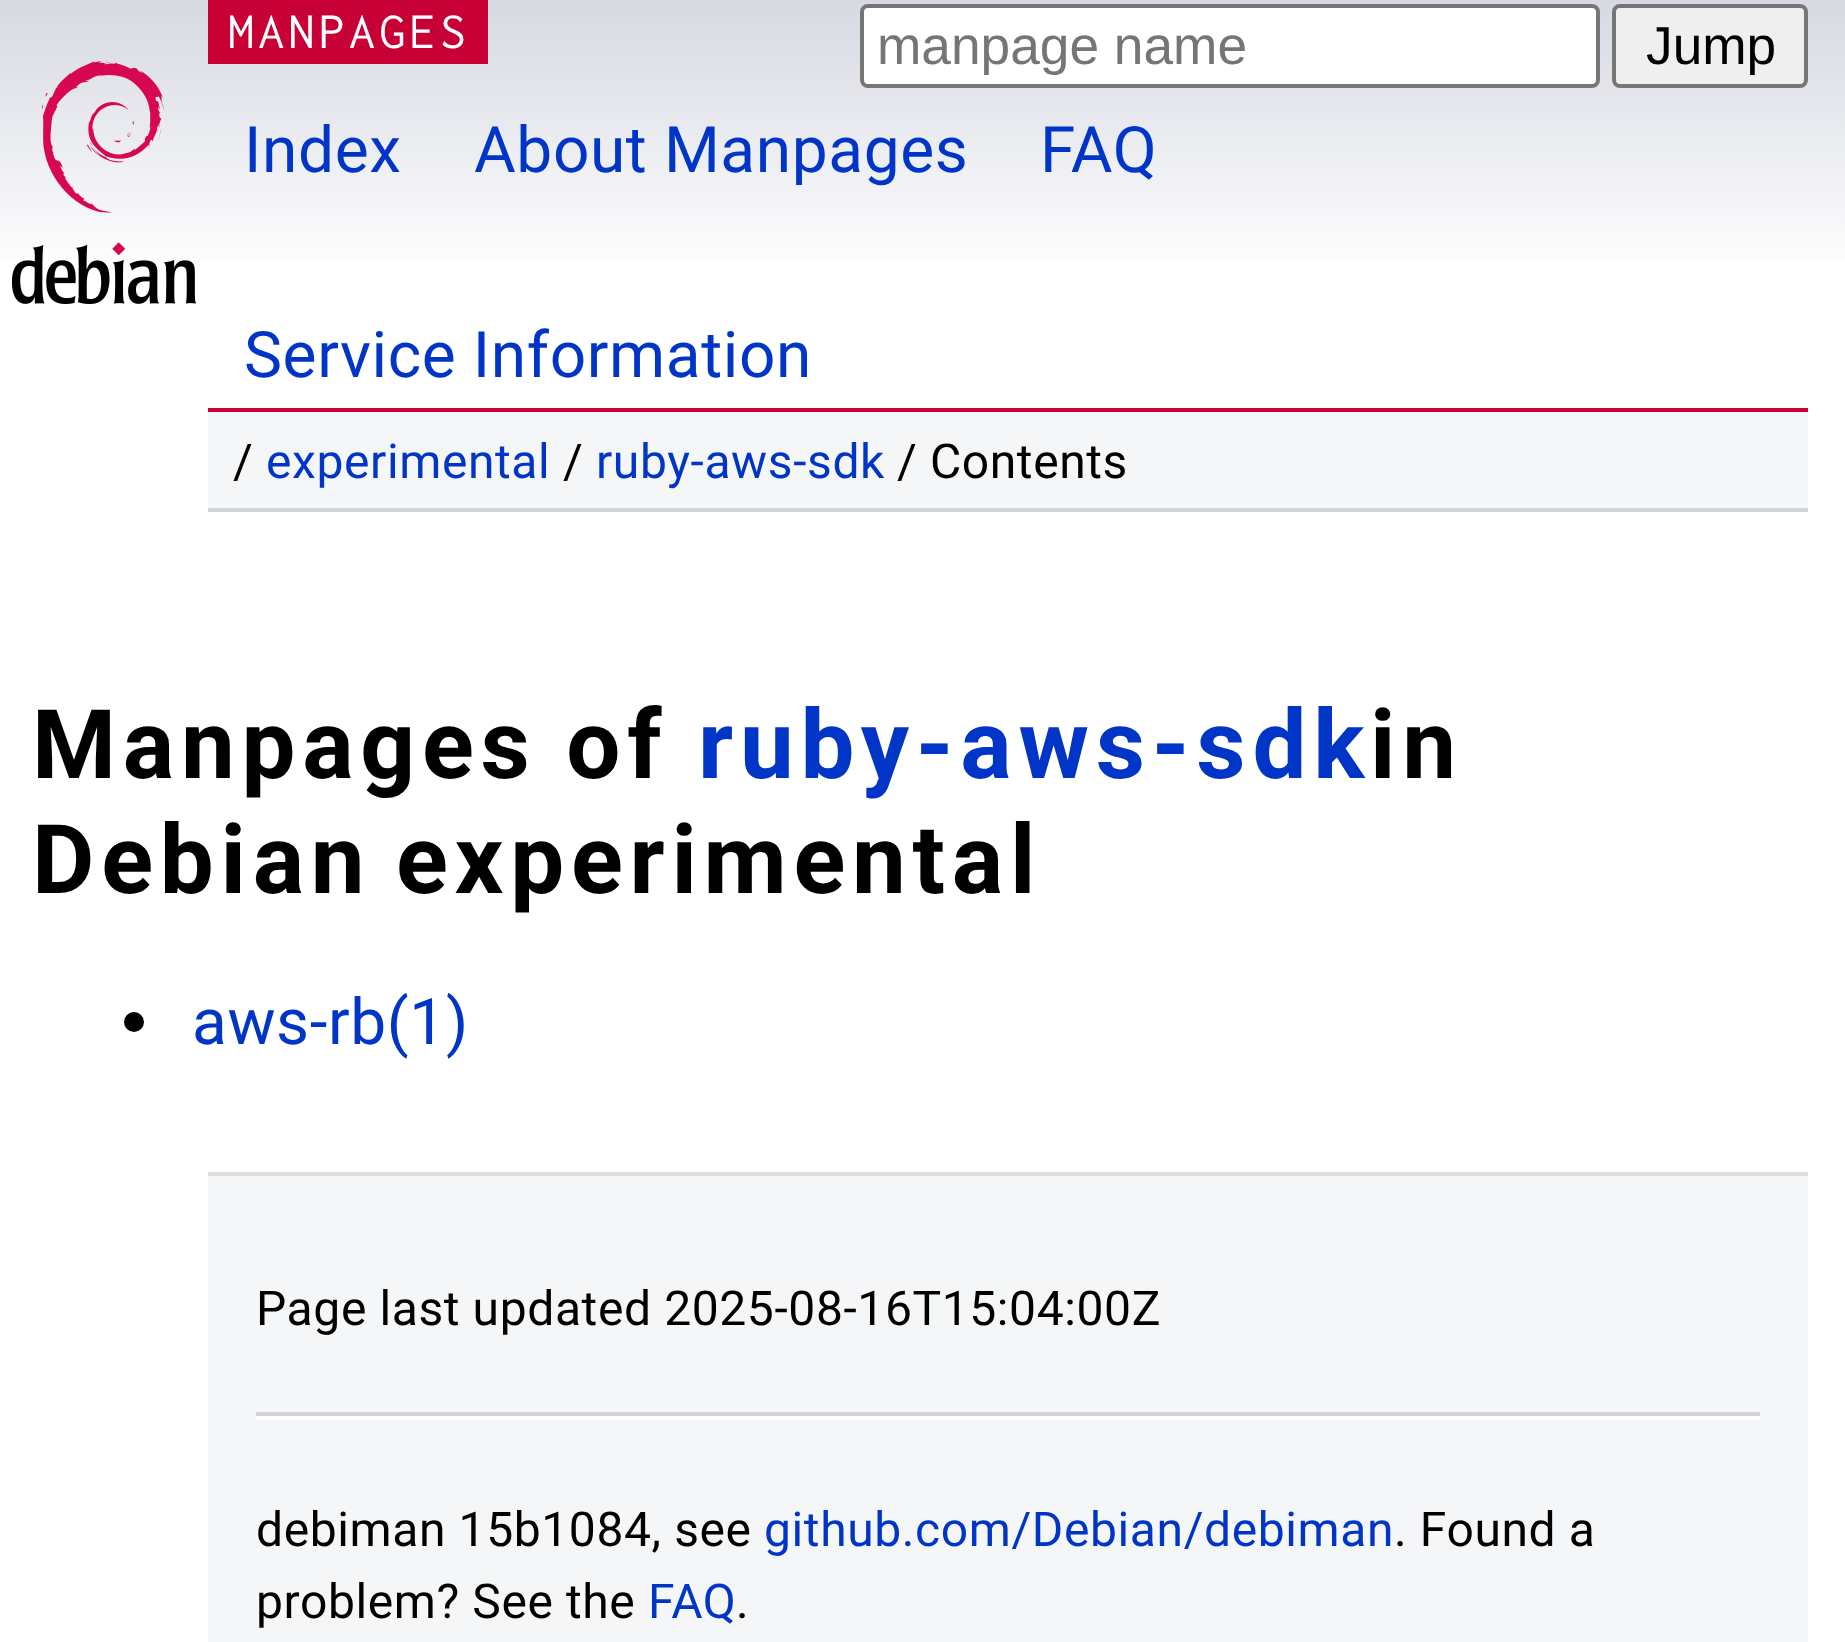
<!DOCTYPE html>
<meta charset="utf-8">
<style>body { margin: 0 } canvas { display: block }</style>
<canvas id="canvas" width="1845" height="1642"></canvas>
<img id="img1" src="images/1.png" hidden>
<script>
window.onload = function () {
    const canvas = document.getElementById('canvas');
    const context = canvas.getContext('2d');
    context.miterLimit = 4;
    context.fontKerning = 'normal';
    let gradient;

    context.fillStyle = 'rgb(255, 255, 255)';
    context.fillRect(0, 0, 1845, 1642);
    gradient = context.createLinearGradient(924, 0, 924, 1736);
    gradient.addColorStop(0, 'rgb(215, 217, 226)');
    gradient.addColorStop(0.16, 'rgb(255, 255, 255)');
    context.fillStyle = gradient;
    context.fillRect(0, 0, 1845, 260);
    context.fillStyle = 'rgb(199, 0, 54)';
    context.fillRect(208, 0, 280, 64);
    context.fillStyle = 'rgb(255, 255, 255)';
    context.beginPath();
    context.roundRect(862, 6, 736, 80, 6);
    context.fill();
    context.strokeStyle = 'rgb(118, 118, 118)';
    context.lineWidth = 4;
    context.stroke();
    context.fillStyle = 'rgb(239, 239, 239)';
    context.beginPath();
    context.roundRect(1614, 6, 192, 80, 6);
    context.fill();
    context.stroke();
    context.drawImage(document.getElementById('img1'), 11, 60, 185, 244);
    context.fillStyle = 'rgb(199, 0, 54)';
    context.fillRect(208, 408, 1600, 4);
    context.fillStyle = 'rgb(245, 246, 247)';
    context.fillRect(208, 412, 1600, 96);
    context.fillStyle = 'rgb(210, 211, 215)';
    context.fillRect(208, 508, 1600, 4);
    context.fillStyle = 'rgb(0, 0, 0)';
    context.beginPath();
    context.arc(134, 1022, 10, 0, 2 * Math.PI);
    context.fill();
    context.fillStyle = 'rgb(245, 246, 247)';
    context.fillRect(208, 1176, 1600, 466);
    context.fillStyle = 'rgb(223, 223, 224)';
    context.fillRect(208, 1172, 1600, 4);
    context.fillStyle = 'rgb(210, 211, 215)';
    context.fillRect(256, 1412, 1504, 4);
    context.fillStyle = 'rgb(255, 255, 255)';
    context.fillRect(256, 1416, 1504, 4);
    context.letterSpacing = '4.25px';
    context.font = '52px Inconsolata';
    context.fillText('MANPAGES', 228, 48);
    context.letterSpacing = '0px';
    context.font = '53.25px Liberation Sans';
    context.fillStyle = 'rgb(117, 117, 117)';
    context.fillText('manpage name', 877, 64);
    context.fillStyle = 'rgb(0, 0, 0)';
    context.fillText('Jump', 1646, 64);
    context.letterSpacing = '0.6px';
    context.font = '64px Roboto';
    context.fillStyle = 'rgb(0, 53, 199)';
    context.fillText('Index', 244, 172);
    context.fillText('About Manpages', 474, 172);
    context.fillText('FAQ', 1040, 172);
    context.fillText('Service Information', 244, 377);
    context.font = '48px Roboto';
    context.fillStyle = 'rgb(0, 0, 0)';
    context.fillText('/', 233, 478);
    context.fillStyle = 'rgb(0, 53, 199)';
    context.fillText('experimental', 266, 478);
    context.fillStyle = 'rgb(0, 0, 0)';
    context.fillText('/', 563, 478);
    context.fillStyle = 'rgb(0, 53, 199)';
    context.fillText('ruby-aws-sdk', 596, 478);
    context.fillStyle = 'rgb(0, 0, 0)';
    context.fillText('/ Contents', 897, 478);
    context.letterSpacing = '6.75px';
    context.wordSpacing = '-1px';
    context.font = 'bold 96px Roboto';
    context.fillText('Manpages of', 32, 778);
    context.wordSpacing = '0px';
    context.fillStyle = 'rgb(0, 53, 199)';
    context.fillText('ruby-aws-sdk', 698, 778);
    context.fillStyle = 'rgb(0, 0, 0)';
    context.fillText('in', 1370, 778);
    context.wordSpacing = '-6px';
    context.fillText('Debian experimental', 32, 893);
    context.letterSpacing = '0.6px';
    context.wordSpacing = '0px';
    context.font = '64px Roboto';
    context.fillStyle = 'rgb(0, 53, 199)';
    context.fillText('aws-rb(1)', 192, 1044);
    context.font = '48px Roboto';
    context.fillStyle = 'rgb(0, 0, 0)';
    context.fillText('Page last updated 2025-08-16T15:04:00Z', 256, 1325);
    context.fillText('debiman 15b1084, see', 256, 1546);
    context.fillStyle = 'rgb(0, 53, 199)';
    context.fillText('github.com/Debian/debiman', 764, 1546);
    context.fillStyle = 'rgb(0, 0, 0)';
    context.fillText('. Found a', 1394, 1546);
    context.fillText('problem? See the', 256, 1618);
    context.fillStyle = 'rgb(0, 53, 199)';
    context.fillText('FAQ', 648, 1618);
    context.fillStyle = 'rgb(0, 0, 0)';
    context.fillText('.', 736, 1618);
};
</script>
